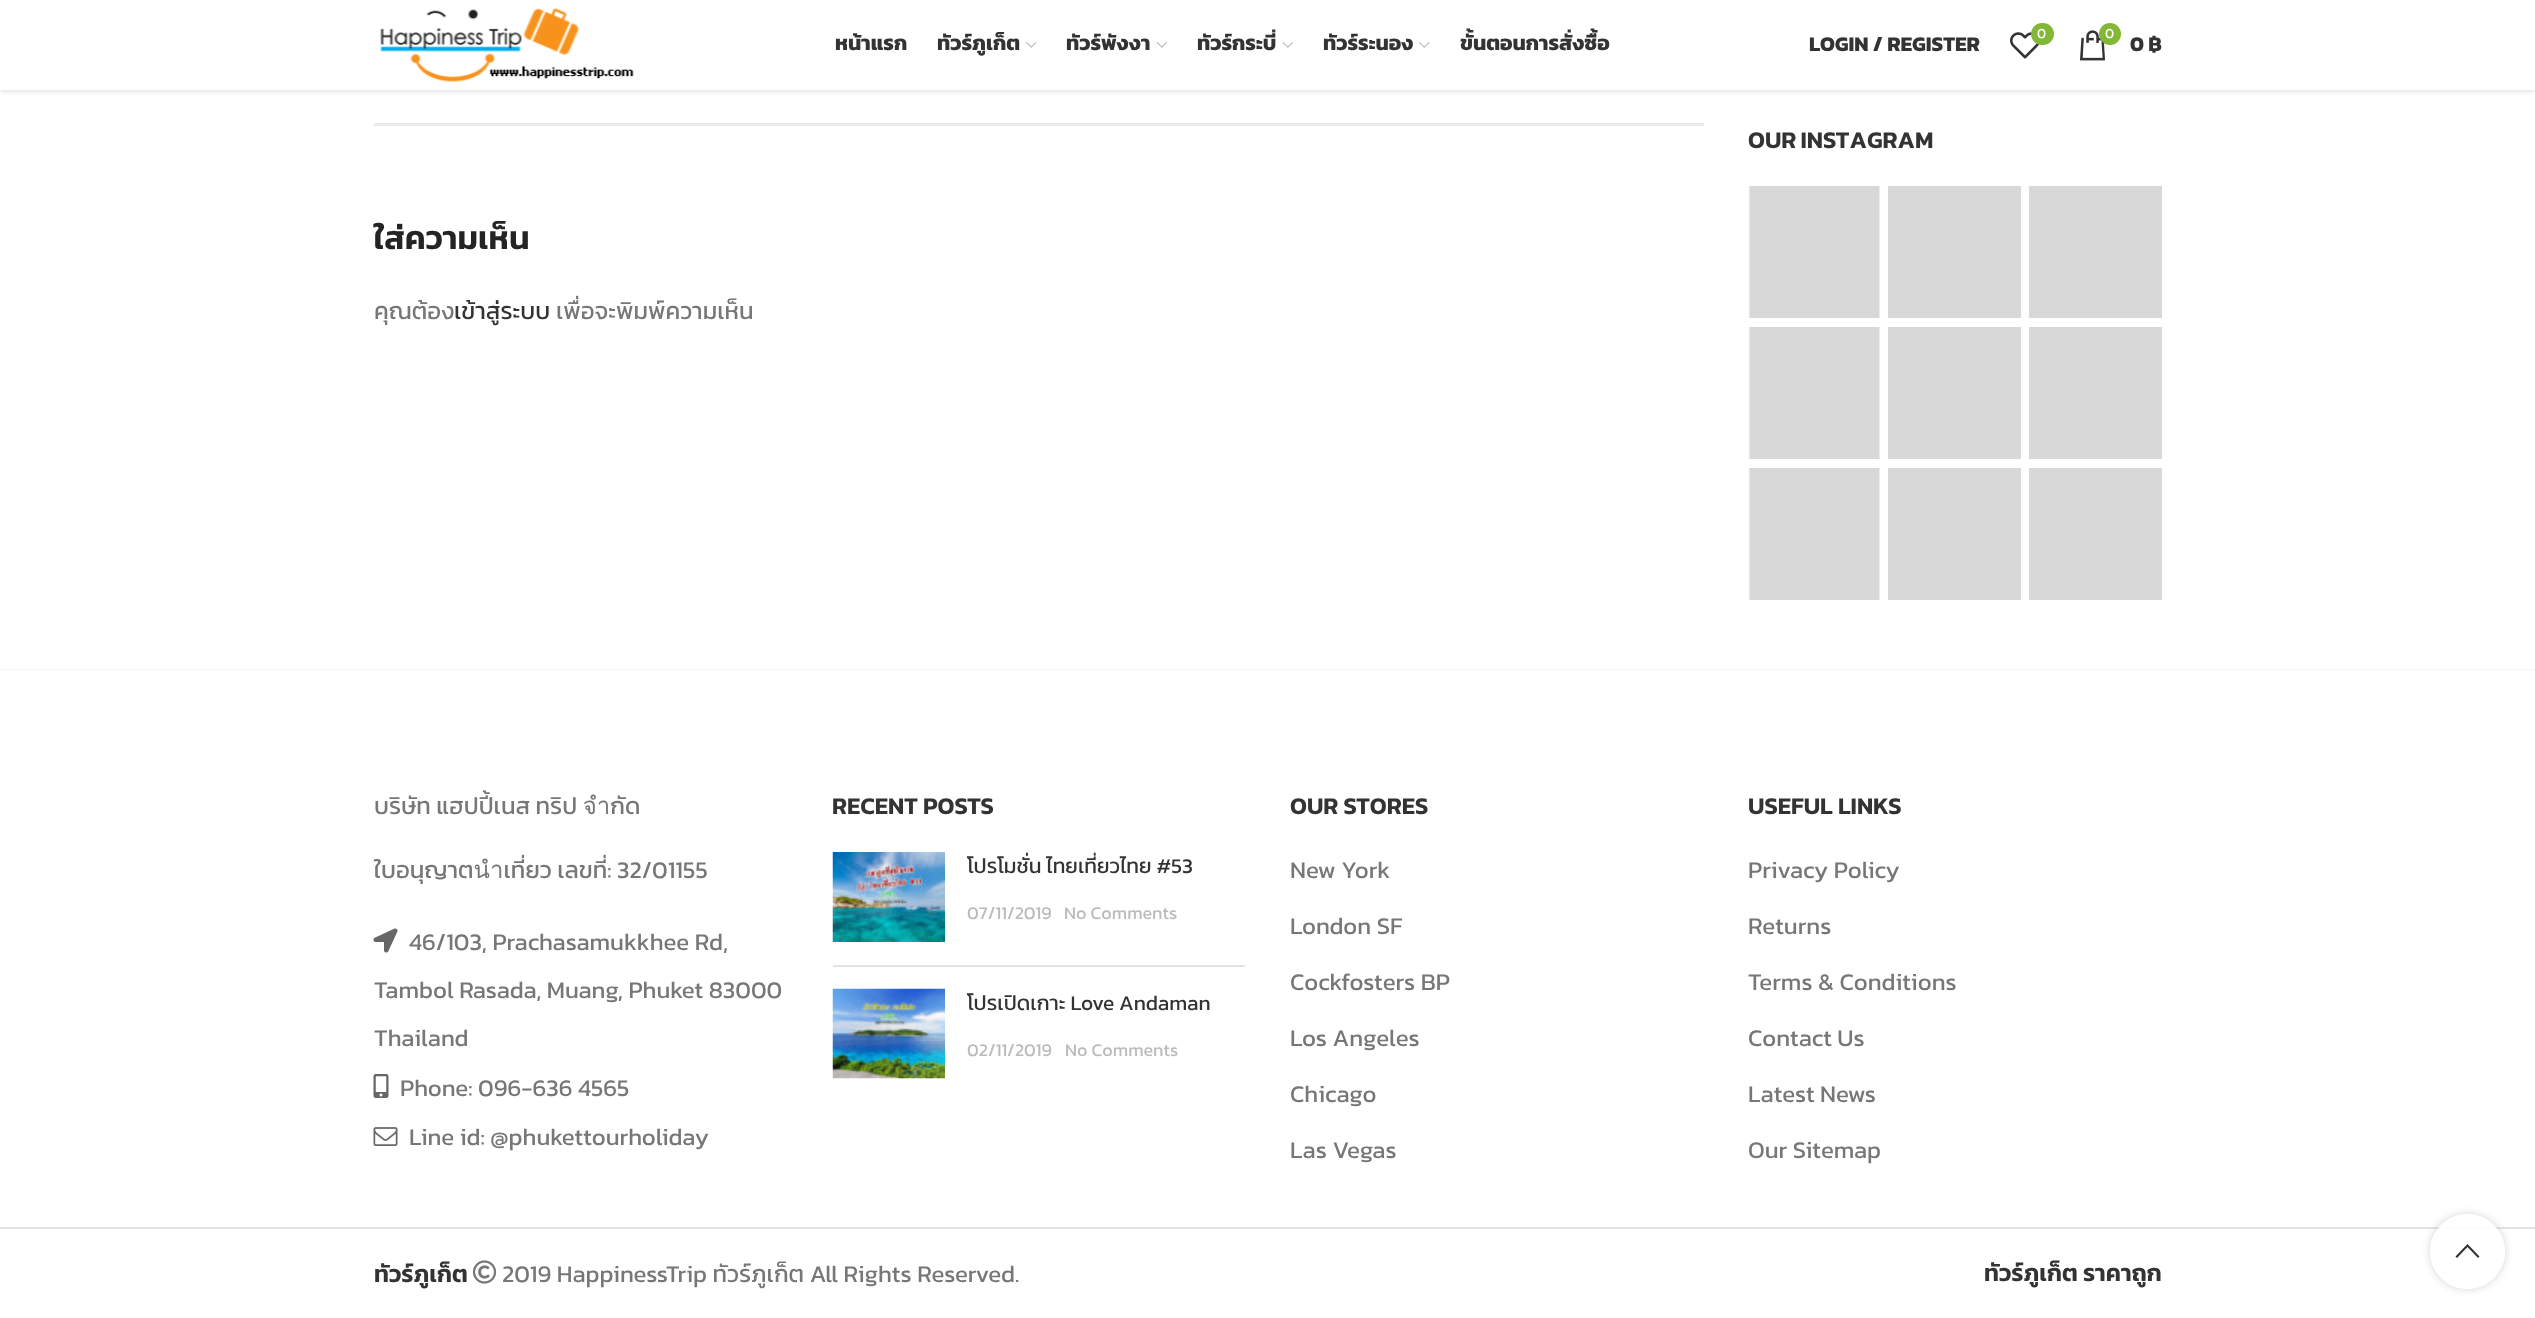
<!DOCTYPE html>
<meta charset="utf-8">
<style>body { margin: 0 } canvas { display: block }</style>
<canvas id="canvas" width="2535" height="1318"></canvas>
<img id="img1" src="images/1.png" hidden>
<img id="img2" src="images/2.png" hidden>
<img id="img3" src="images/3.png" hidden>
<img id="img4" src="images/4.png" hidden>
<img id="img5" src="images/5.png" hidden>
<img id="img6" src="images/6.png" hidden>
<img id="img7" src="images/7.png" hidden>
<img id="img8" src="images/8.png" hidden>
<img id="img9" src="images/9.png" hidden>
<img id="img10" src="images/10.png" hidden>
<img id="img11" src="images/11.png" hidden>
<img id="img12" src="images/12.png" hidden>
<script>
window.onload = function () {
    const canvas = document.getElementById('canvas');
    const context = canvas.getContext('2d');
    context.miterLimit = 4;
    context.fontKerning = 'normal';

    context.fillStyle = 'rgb(255, 255, 255)';
    context.fillRect(0, 0, 2535, 1318);
    context.fillStyle = 'rgba(0, 0, 0, 0.1)';
    context.filter = 'blur(2px)';
    context.beginPath();
    context.rect(0, 2, 2535, 90);
    context.fill();
    context.filter = 'none';
    context.fillStyle = 'rgb(255, 255, 255)';
    context.fillRect(0, 0, 2535, 90);
    context.drawImage(document.getElementById('img1'), 380, 8, 254, 74);
    context.drawImage(document.getElementById('img2'), 1026, 42, 11, 6);
    context.drawImage(document.getElementById('img3'), 1156, 42, 11, 6);
    context.drawImage(document.getElementById('img3'), 1282, 42, 11, 6);
    context.drawImage(document.getElementById('img2'), 1419, 42, 11, 6);
    context.drawImage(document.getElementById('img4'), 2010, 32, 30, 27);
    context.fillStyle = 'rgb(131, 183, 53)';
    context.beginPath();
    context.roundRect(2031, 23, 23, 22, 11);
    context.fill();
    context.drawImage(document.getElementById('img5'), 2080, 30, 25, 31);
    context.beginPath();
    context.arc(2110, 34, 11, 0, 2 * Math.PI);
    context.fill();
    context.drawImage(document.getElementById('img6'), 1748, 186, 132, 132);
    context.fillStyle = 'rgb(216, 216, 216)';
    context.fillRect(1888, 186, 133, 132);
    context.fillRect(2029, 186, 133, 132);
    context.drawImage(document.getElementById('img6'), 1748, 327, 132, 132);
    context.fillRect(1888, 327, 133, 132);
    context.fillRect(2029, 327, 133, 132);
    context.drawImage(document.getElementById('img6'), 1748, 468, 132, 132);
    context.fillRect(1888, 468, 133, 132);
    context.fillRect(2029, 468, 133, 132);
    context.fillStyle = 'rgb(234, 234, 234)';
    context.fillRect(374, 123, 1330, 3);
    context.fillStyle = 'rgb(249, 249, 249)';
    context.fillRect(0, 669, 2535, 2);
    context.drawImage(document.getElementById('img7'), 373, 928, 25, 25);
    context.drawImage(document.getElementById('img8'), 373, 1074, 16, 24);
    context.drawImage(document.getElementById('img9'), 373, 1127, 25, 19);
    context.fillStyle = 'rgb(228, 228, 228)';
    context.fillRect(833, 965, 412, 2);
    context.drawImage(document.getElementById('img10'), 832, 852, 113, 90);
    context.drawImage(document.getElementById('img11'), 832, 988, 113, 91);
    context.fillRect(0, 1227, 2535, 2);
    context.drawImage(document.getElementById('img12'), 472, 1260, 25, 24);
    context.save();
    context.beginPath();
    context.moveTo(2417, 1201);
    context.lineTo(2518, 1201);
    context.lineTo(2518, 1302);
    context.lineTo(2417, 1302);
    context.closePath();
    context.moveTo(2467.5, 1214);
    context.bezierCurveTo(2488, 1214, 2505, 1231, 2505, 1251.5);
    context.bezierCurveTo(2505, 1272, 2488, 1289, 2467.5, 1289);
    context.bezierCurveTo(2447, 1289, 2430, 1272, 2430, 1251.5);
    context.bezierCurveTo(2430, 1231, 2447, 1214, 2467.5, 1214);
    context.closePath();
    context.clip('evenodd');
    context.fillStyle = 'rgba(0, 0, 0, 0.17)';
    context.filter = 'blur(4px)';
    context.beginPath();
    context.roundRect(2430, 1214, 75, 75, 37.5);
    context.fill();
    context.filter = 'none';
    context.restore();
    context.fillStyle = 'rgba(255, 255, 255, 0.9)';
    context.beginPath();
    context.arc(2467.5, 1251.5, 37.5, 0, 2 * Math.PI);
    context.fill();
    context.fillStyle = 'rgb(51, 51, 51)';
    context.beginPath();
    context.moveTo(2467.5, 1244);
    context.lineTo(2479.5, 1256.5);
    context.lineTo(2478, 1258);
    context.lineTo(2467.5, 1247);
    context.lineTo(2457, 1258);
    context.lineTo(2455.5, 1256.5);
    context.closePath();
    context.fill();
    context.font = 'bold 21px Kanit';
    context.fillText('หน้าแรก', 835, 50);
    context.fillText('ทัวร์ภูเก็ต', 937, 50);
    context.fillText('ทัวร์พังงา', 1066, 50);
    context.fillText('ทัวร์กระบี่', 1197, 50);
    context.fillText('ทัวร์ระนอง', 1323, 50);
    context.fillText('ขั้นตอนการสั่งซื้อ', 1460, 50);
    context.fillText('LOGIN / REGISTER', 1809, 51);
    context.font = '14px Kanit';
    context.fillStyle = 'rgb(255, 255, 255)';
    context.fillText('0', 2037, 38);
    context.fillText('0', 2105, 38);
    context.font = 'bold 21px Kanit';
    context.fillStyle = 'rgb(51, 51, 51)';
    context.fillText('0 ฿', 2130, 51);
    context.wordSpacing = '-1px';
    context.font = '600 24px Kanit';
    context.fillText('OUR INSTAGRAM', 1748, 148);
    context.wordSpacing = '0px';
    context.font = '600 33px Kanit';
    context.fillStyle = 'rgb(36, 36, 36)';
    context.fillText('ใส่ความเห็น', 374, 249);
    context.font = '24px Kanit';
    context.fillStyle = 'rgb(119, 119, 119)';
    context.fillText('คุณต้อง', 374, 319);
    context.fillStyle = 'rgb(51, 51, 51)';
    context.fillText('เข้าสู่ระบบ', 454, 319);
    context.fillStyle = 'rgb(119, 119, 119)';
    context.fillText('เพื่อจะพิมพ์ความเห็น', 556, 319);
    context.fillText('บริษัท แฮปปี้เนส ทริป จำกัด', 374, 814);
    context.fillText('ใบอนุญาตนำเที่ยว เลขที่: 32/01155', 374, 878);
    context.fillText('46/103, Prachasamukkhee Rd,', 409, 950);
    context.fillText('Tambol Rasada, Muang, Phuket 83000', 374, 998);
    context.fillText('Thailand', 374, 1046);
    context.fillText('Phone: 096-636 4565', 400, 1096);
    context.fillText('Line id: @phukettourholiday', 409, 1145);
    context.font = '600 24px Kanit';
    context.fillStyle = 'rgb(51, 51, 51)';
    context.fillText('RECENT POSTS', 832, 814);
    context.font = '21px Kanit';
    context.fillText('โปรโมชั่น ไทยเที่ยวไทย #53', 967, 873);
    context.font = '18px Kanit';
    context.fillStyle = 'rgb(187, 187, 187)';
    context.fillText('07/11/2019', 967, 919);
    context.fillText('No Comments', 1064, 919);
    context.font = '21px Kanit';
    context.fillStyle = 'rgb(51, 51, 51)';
    context.fillText('โปรเปิดเกาะ Love Andaman', 967, 1010);
    context.font = '18px Kanit';
    context.fillStyle = 'rgb(187, 187, 187)';
    context.fillText('02/11/2019', 967, 1056);
    context.fillText('No Comments', 1065, 1056);
    context.font = '600 24px Kanit';
    context.fillStyle = 'rgb(51, 51, 51)';
    context.fillText('OUR STORES', 1290, 814);
    context.font = '24px Kanit';
    context.fillStyle = 'rgb(119, 119, 119)';
    context.fillText('New York', 1290, 878);
    context.fillText('London SF', 1290, 934);
    context.fillText('Cockfosters BP', 1290, 990);
    context.fillText('Los Angeles', 1290, 1046);
    context.fillText('Chicago', 1290, 1102);
    context.fillText('Las Vegas', 1290, 1158);
    context.font = '600 24px Kanit';
    context.fillStyle = 'rgb(51, 51, 51)';
    context.fillText('USEFUL LINKS', 1748, 814);
    context.font = '24px Kanit';
    context.fillStyle = 'rgb(119, 119, 119)';
    context.fillText('Privacy Policy', 1748, 878);
    context.fillText('Returns', 1748, 934);
    context.fillText('Terms & Conditions', 1748, 990);
    context.fillText('Contact Us', 1748, 1046);
    context.fillText('Latest News', 1748, 1102);
    context.fillText('Our Sitemap', 1748, 1158);
    context.font = '600 24px Kanit';
    context.fillStyle = 'rgb(51, 51, 51)';
    context.fillText('ทัวร์ภูเก็ต', 374, 1282);
    context.font = '24px Kanit';
    context.fillStyle = 'rgb(119, 119, 119)';
    context.fillText('2019 HappinessTrip ทัวร์ภูเก็ต All Rights Reserved.', 502, 1282);
    context.font = '600 24px Kanit';
    context.fillStyle = 'rgb(51, 51, 51)';
    context.fillText('ทัวร์ภูเก็ต ราคาถูก', 1984, 1281);
};
</script>
